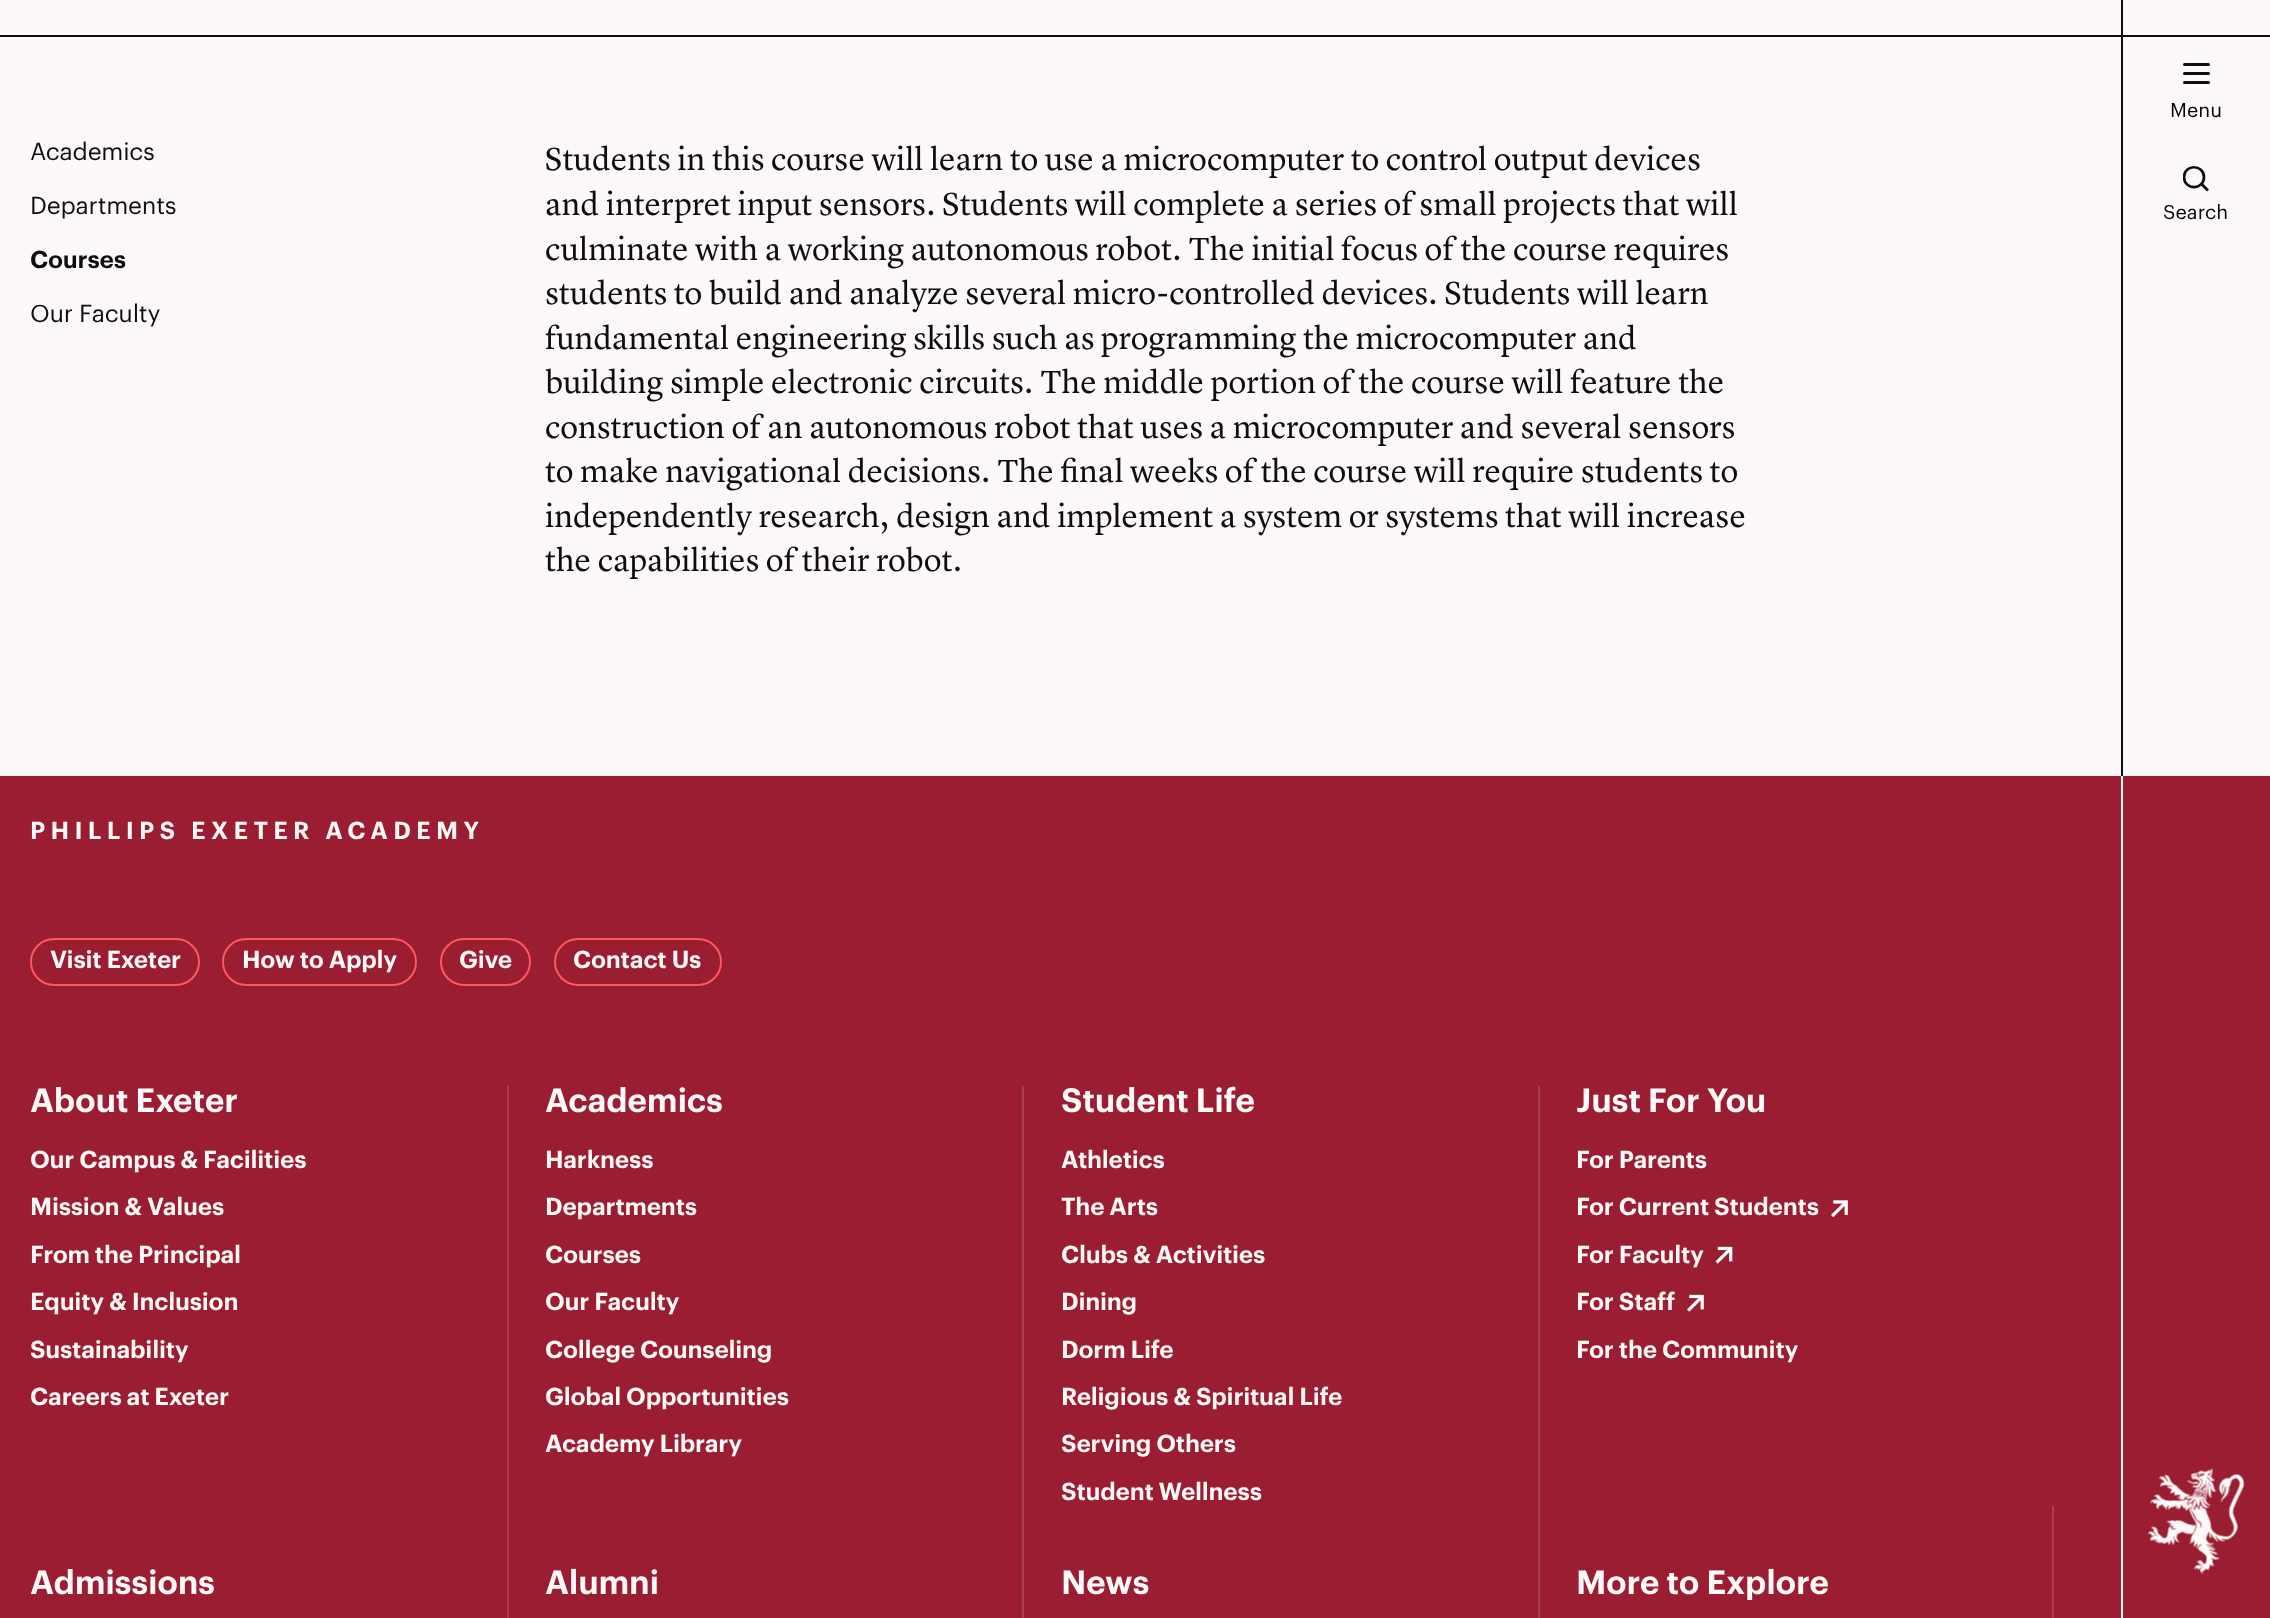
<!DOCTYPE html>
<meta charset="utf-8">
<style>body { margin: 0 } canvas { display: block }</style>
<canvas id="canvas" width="2270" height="1618"></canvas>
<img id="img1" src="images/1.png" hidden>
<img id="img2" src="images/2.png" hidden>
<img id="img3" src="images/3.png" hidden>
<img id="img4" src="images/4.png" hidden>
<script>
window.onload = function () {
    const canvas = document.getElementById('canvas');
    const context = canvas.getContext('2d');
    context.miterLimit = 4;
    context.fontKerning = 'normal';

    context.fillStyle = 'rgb(252, 249, 248)';
    context.fillRect(0, 0, 2270, 1618);
    context.fillStyle = 'rgb(15, 13, 13)';
    context.fillRect(0, 35, 2270, 2);
    context.fillRect(2121, 0, 2, 776);
    context.beginPath();
    context.roundRect(2183, 72, 27, 3, 1.5);
    context.fill();
    context.beginPath();
    context.roundRect(2183, 63, 27, 3, 1.5);
    context.fill();
    context.beginPath();
    context.roundRect(2183, 81, 27, 3, 1.5);
    context.fill();
    context.save();
    context.beginPath();
    context.rect(2183, 165, 27, 27);
    context.clip();
    context.beginPath();
    context.moveTo(2201, 183.5);
    context.lineTo(2208, 190.5);
    context.moveTo(2204, 177);
    context.bezierCurveTo(2204, 190.5, 2184, 190.5, 2184, 177);
    context.bezierCurveTo(2184, 164, 2204, 164, 2204, 177);
    context.closePath();
    context.strokeStyle = 'rgb(15, 13, 13)';
    context.lineWidth = 2.7;
    context.stroke();
    context.restore();
    context.fillStyle = 'rgb(155, 29, 49)';
    context.fillRect(0, 776, 2270, 842);
    context.beginPath();
    context.roundRect(31, 939, 168, 46, 23);
    context.strokeStyle = 'rgb(255, 88, 93)';
    context.lineWidth = 2;
    context.stroke();
    context.beginPath();
    context.roundRect(223, 939, 193, 46, 23);
    context.stroke();
    context.beginPath();
    context.roundRect(441, 939, 89, 46, 23);
    context.stroke();
    context.beginPath();
    context.roundRect(555, 939, 166, 46, 23);
    context.stroke();
    context.fillStyle = 'rgb(170, 62, 79)';
    context.fillRect(507, 1086, 2, 532);
    context.fillRect(1022, 1086, 2, 532);
    context.fillRect(1538, 1086, 2, 532);
    context.drawImage(document.getElementById('img1'), 1831, 1200, 17, 18);
    context.drawImage(document.getElementById('img2'), 1715, 1246, 18, 18);
    context.drawImage(document.getElementById('img3'), 1687, 1294, 17, 18);
    context.fillRect(2052, 1506, 2, 112);
    context.fillStyle = 'rgb(252, 249, 248)';
    context.fillRect(2121, 776, 2, 842);
    context.drawImage(document.getElementById('img4'), 2148, 1468, 97, 106);
    context.letterSpacing = '-0.25px';
    context.font = '24px Graphik';
    context.fillStyle = 'rgb(15, 13, 13)';
    context.fillText('Academics', 30, 160);
    context.fillText('Departments', 30, 214);
    context.font = '600 24px Graphik';
    context.fillText('Courses', 30, 268);
    context.font = '24px Graphik';
    context.fillText('Our Faculty', 30, 322);
    context.letterSpacing = '0px';
    context.font = '33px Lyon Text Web';
    context.fillText('Students in this course will learn to use a microcomputer to control output devices', 545, 170);
    context.fillText('and interpret input sensors. Students will complete a series of small projects that will', 545, 215);
    context.fillText('culminate with a working autonomous robot. The initial focus of the course requires', 545, 260);
    context.fillText('students to build and analyze several micro-controlled devices. Students will learn', 545, 304);
    context.fillText('fundamental engineering skills such as programming the microcomputer and', 545, 349);
    context.fillText('building simple electronic circuits. The middle portion of the course will feature the', 545, 393);
    context.fillText('construction of an autonomous robot that uses a microcomputer and several sensors', 545, 438);
    context.fillText('to make navigational decisions. The final weeks of the course will require students to', 545, 482);
    context.fillText('independently research, design and implement a system or systems that will increase', 545, 527);
    context.fillText('the capabilities of their robot.', 545, 571);
    context.font = '19.5px Graphik';
    context.fillStyle = 'rgb(0, 0, 0)';
    context.fillText('Menu', 2170, 117);
    context.fillText('Search', 2163, 219);
    context.letterSpacing = '5.25px';
    context.font = '600 24px Graphik';
    context.fillStyle = 'rgb(252, 249, 248)';
    context.fillText('PHILLIPS EXETER ACADEMY', 30, 839);
    context.letterSpacing = '-0.25px';
    context.fillText('Visit Exeter', 50, 968);
    context.fillText('How to Apply', 242, 968);
    context.fillText('Give', 459, 968);
    context.fillText('Contact Us', 573, 968);
    context.letterSpacing = '-0.3px';
    context.font = '600 33px Graphik';
    context.fillText('About Exeter', 30, 1112);
    context.letterSpacing = '-0.25px';
    context.font = '600 24px Graphik';
    context.fillText('Our Campus & Facilities', 30, 1168);
    context.fillText('Mission & Values', 30, 1215);
    context.fillText('From the Principal', 30, 1263);
    context.fillText('Equity & Inclusion', 30, 1310);
    context.fillText('Sustainability', 30, 1358);
    context.fillText('Careers at Exeter', 30, 1405);
    context.letterSpacing = '-0.3px';
    context.font = '600 33px Graphik';
    context.fillText('Academics', 545, 1112);
    context.letterSpacing = '-0.25px';
    context.font = '600 24px Graphik';
    context.fillText('Harkness', 545, 1168);
    context.fillText('Departments', 545, 1215);
    context.fillText('Courses', 545, 1263);
    context.fillText('Our Faculty', 545, 1310);
    context.fillText('College Counseling', 545, 1358);
    context.fillText('Global Opportunities', 545, 1405);
    context.fillText('Academy Library', 545, 1452);
    context.letterSpacing = '-0.3px';
    context.font = '600 33px Graphik';
    context.fillText('Student Life', 1061, 1112);
    context.letterSpacing = '-0.25px';
    context.font = '600 24px Graphik';
    context.fillText('Athletics', 1061, 1168);
    context.fillText('The Arts', 1061, 1215);
    context.fillText('Clubs & Activities', 1061, 1263);
    context.fillText('Dining', 1061, 1310);
    context.fillText('Dorm Life', 1061, 1358);
    context.fillText('Religious & Spiritual Life', 1061, 1405);
    context.fillText('Serving Others', 1061, 1452);
    context.fillText('Student Wellness', 1061, 1500);
    context.letterSpacing = '-0.3px';
    context.font = '600 33px Graphik';
    context.fillText('Just For You', 1576, 1112);
    context.letterSpacing = '-0.25px';
    context.font = '600 24px Graphik';
    context.fillText('For Parents', 1576, 1168);
    context.fillText('For Current Students', 1576, 1215);
    context.fillText('For Faculty', 1576, 1263);
    context.fillText('For Staff', 1576, 1310);
    context.fillText('For the Community', 1576, 1358);
    context.letterSpacing = '-0.3px';
    context.font = '600 33px Graphik';
    context.fillText('Admissions', 30, 1594);
    context.fillText('Alumni', 545, 1594);
    context.fillText('News', 1061, 1594);
    context.fillText('More to Explore', 1576, 1594);
};
</script>
